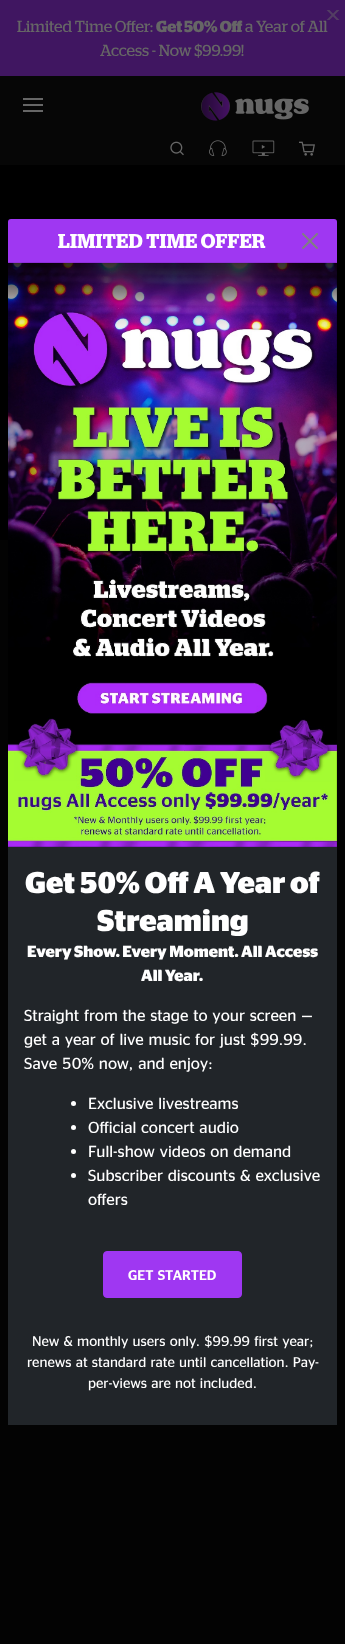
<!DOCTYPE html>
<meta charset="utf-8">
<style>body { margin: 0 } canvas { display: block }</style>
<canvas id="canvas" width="345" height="1644"></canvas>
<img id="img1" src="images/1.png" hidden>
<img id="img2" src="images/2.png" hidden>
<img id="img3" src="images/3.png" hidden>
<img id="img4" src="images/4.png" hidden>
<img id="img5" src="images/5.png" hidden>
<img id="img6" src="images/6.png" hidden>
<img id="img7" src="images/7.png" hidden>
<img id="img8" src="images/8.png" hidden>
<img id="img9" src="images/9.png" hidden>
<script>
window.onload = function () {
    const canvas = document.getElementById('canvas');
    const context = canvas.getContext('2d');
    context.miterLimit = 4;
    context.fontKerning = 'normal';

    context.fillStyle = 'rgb(3, 3, 3)';
    context.fillRect(0, 0, 345, 1644);
    context.fillStyle = 'rgb(0, 0, 0)';
    context.fillRect(0, 165, 345, 375);
    context.fillStyle = 'rgb(64, 22, 97)';
    context.fillRect(0, 0, 345, 76);
    context.drawImage(document.getElementById('img1'), 326, 10, 14, 10);
    context.fillStyle = 'rgb(6, 6, 6)';
    context.fillRect(0, 76, 345, 89);
    context.drawImage(document.getElementById('img2'), 23, 98, 20, 14);
    context.drawImage(document.getElementById('img3'), 201, 92, 108, 29);
    context.drawImage(document.getElementById('img4'), 170, 141, 14, 15);
    context.drawImage(document.getElementById('img5'), 209, 140, 18, 16);
    context.drawImage(document.getElementById('img6'), 252, 140, 23, 16);
    context.drawImage(document.getElementById('img7'), 299, 141, 16, 15);
    context.fillStyle = 'rgb(159, 55, 242)';
    context.beginPath();
    context.roundRect(8, 219, 329, 44, [3, 3, 0, 0]);
    context.fill();
    context.drawImage(document.getElementById('img8'), 302, 233, 16, 16);
    context.drawImage(document.getElementById('img9'), 8, 262, 329, 585);
    context.fillStyle = 'rgb(33, 37, 41)';
    context.fillRect(8, 847, 329, 578);
    context.fillStyle = 'rgb(255, 255, 255)';
    context.beginPath();
    context.arc(73.5, 1103.5, 2.5, 0, 2 * Math.PI);
    context.fill();
    context.beginPath();
    context.arc(73.5, 1127.5, 2.5, 0, 2 * Math.PI);
    context.fill();
    context.beginPath();
    context.arc(73.5, 1151.5, 2.5, 0, 2 * Math.PI);
    context.fill();
    context.beginPath();
    context.arc(73.5, 1175.5, 2.5, 0, 2 * Math.PI);
    context.fill();
    context.fillStyle = 'rgb(159, 55, 242)';
    context.beginPath();
    context.roundRect(103.5, 1251.5, 138, 46, 3.5);
    context.fill();
    context.strokeStyle = 'rgb(159, 55, 242)';
    context.stroke();
    context.font = '16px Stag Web';
    context.fillStyle = 'rgb(102, 102, 102)';
    context.fillText('Limited Time Offer:', 17, 32);
    context.font = 'bold 16px Stag Web';
    context.fillText('Get 50% Off', 156, 32);
    context.font = '16px Stag Web';
    context.fillText('a Year of All', 245, 32);
    context.fillText('Access - Now $99.99!', 100, 56);
    context.letterSpacing = '0.25px';
    context.font = '600 20px Stag Web';
    context.fillStyle = 'rgb(255, 255, 255)';
    context.fillText('LIMITED TIME OFFER', 58, 248);
    context.letterSpacing = '0px';
    context.font = 'bold 30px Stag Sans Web';
    context.fillText('Get 50% Off A Year of', 25, 893);
    context.fillText('Streaming', 97, 931);
    context.font = 'bold 16px Stag Sans Web';
    context.fillText('Every Show. Every Moment. All Access', 27, 957);
    context.fillText('All Year.', 141, 981);
    context.font = '16px Stag Sans Web';
    context.fillText('Straight from the stage to your screen —', 24, 1021);
    context.fillText('get a year of live music for just $99.99.', 24, 1045);
    context.fillText('Save 50% now, and enjoy:', 24, 1069);
    context.fillText('Exclusive livestreams', 88, 1109);
    context.fillText('Official concert audio', 88, 1133);
    context.fillText('Full-show videos on demand', 88, 1157);
    context.fillText('Subscriber discounts & exclusive', 88, 1181);
    context.fillText('offers', 88, 1205);
    context.font = '500 14px Stag Sans Web';
    context.fillText('GET STARTED', 128, 1280);
    context.font = '14px Stag Sans Web';
    context.fillText('New & monthly users only. $99.99 first year;', 32, 1346);
    context.fillText('renews at standard rate until cancellation. Pay-', 27, 1367);
    context.fillText('per-views are not included.', 88, 1388);
};
</script>
